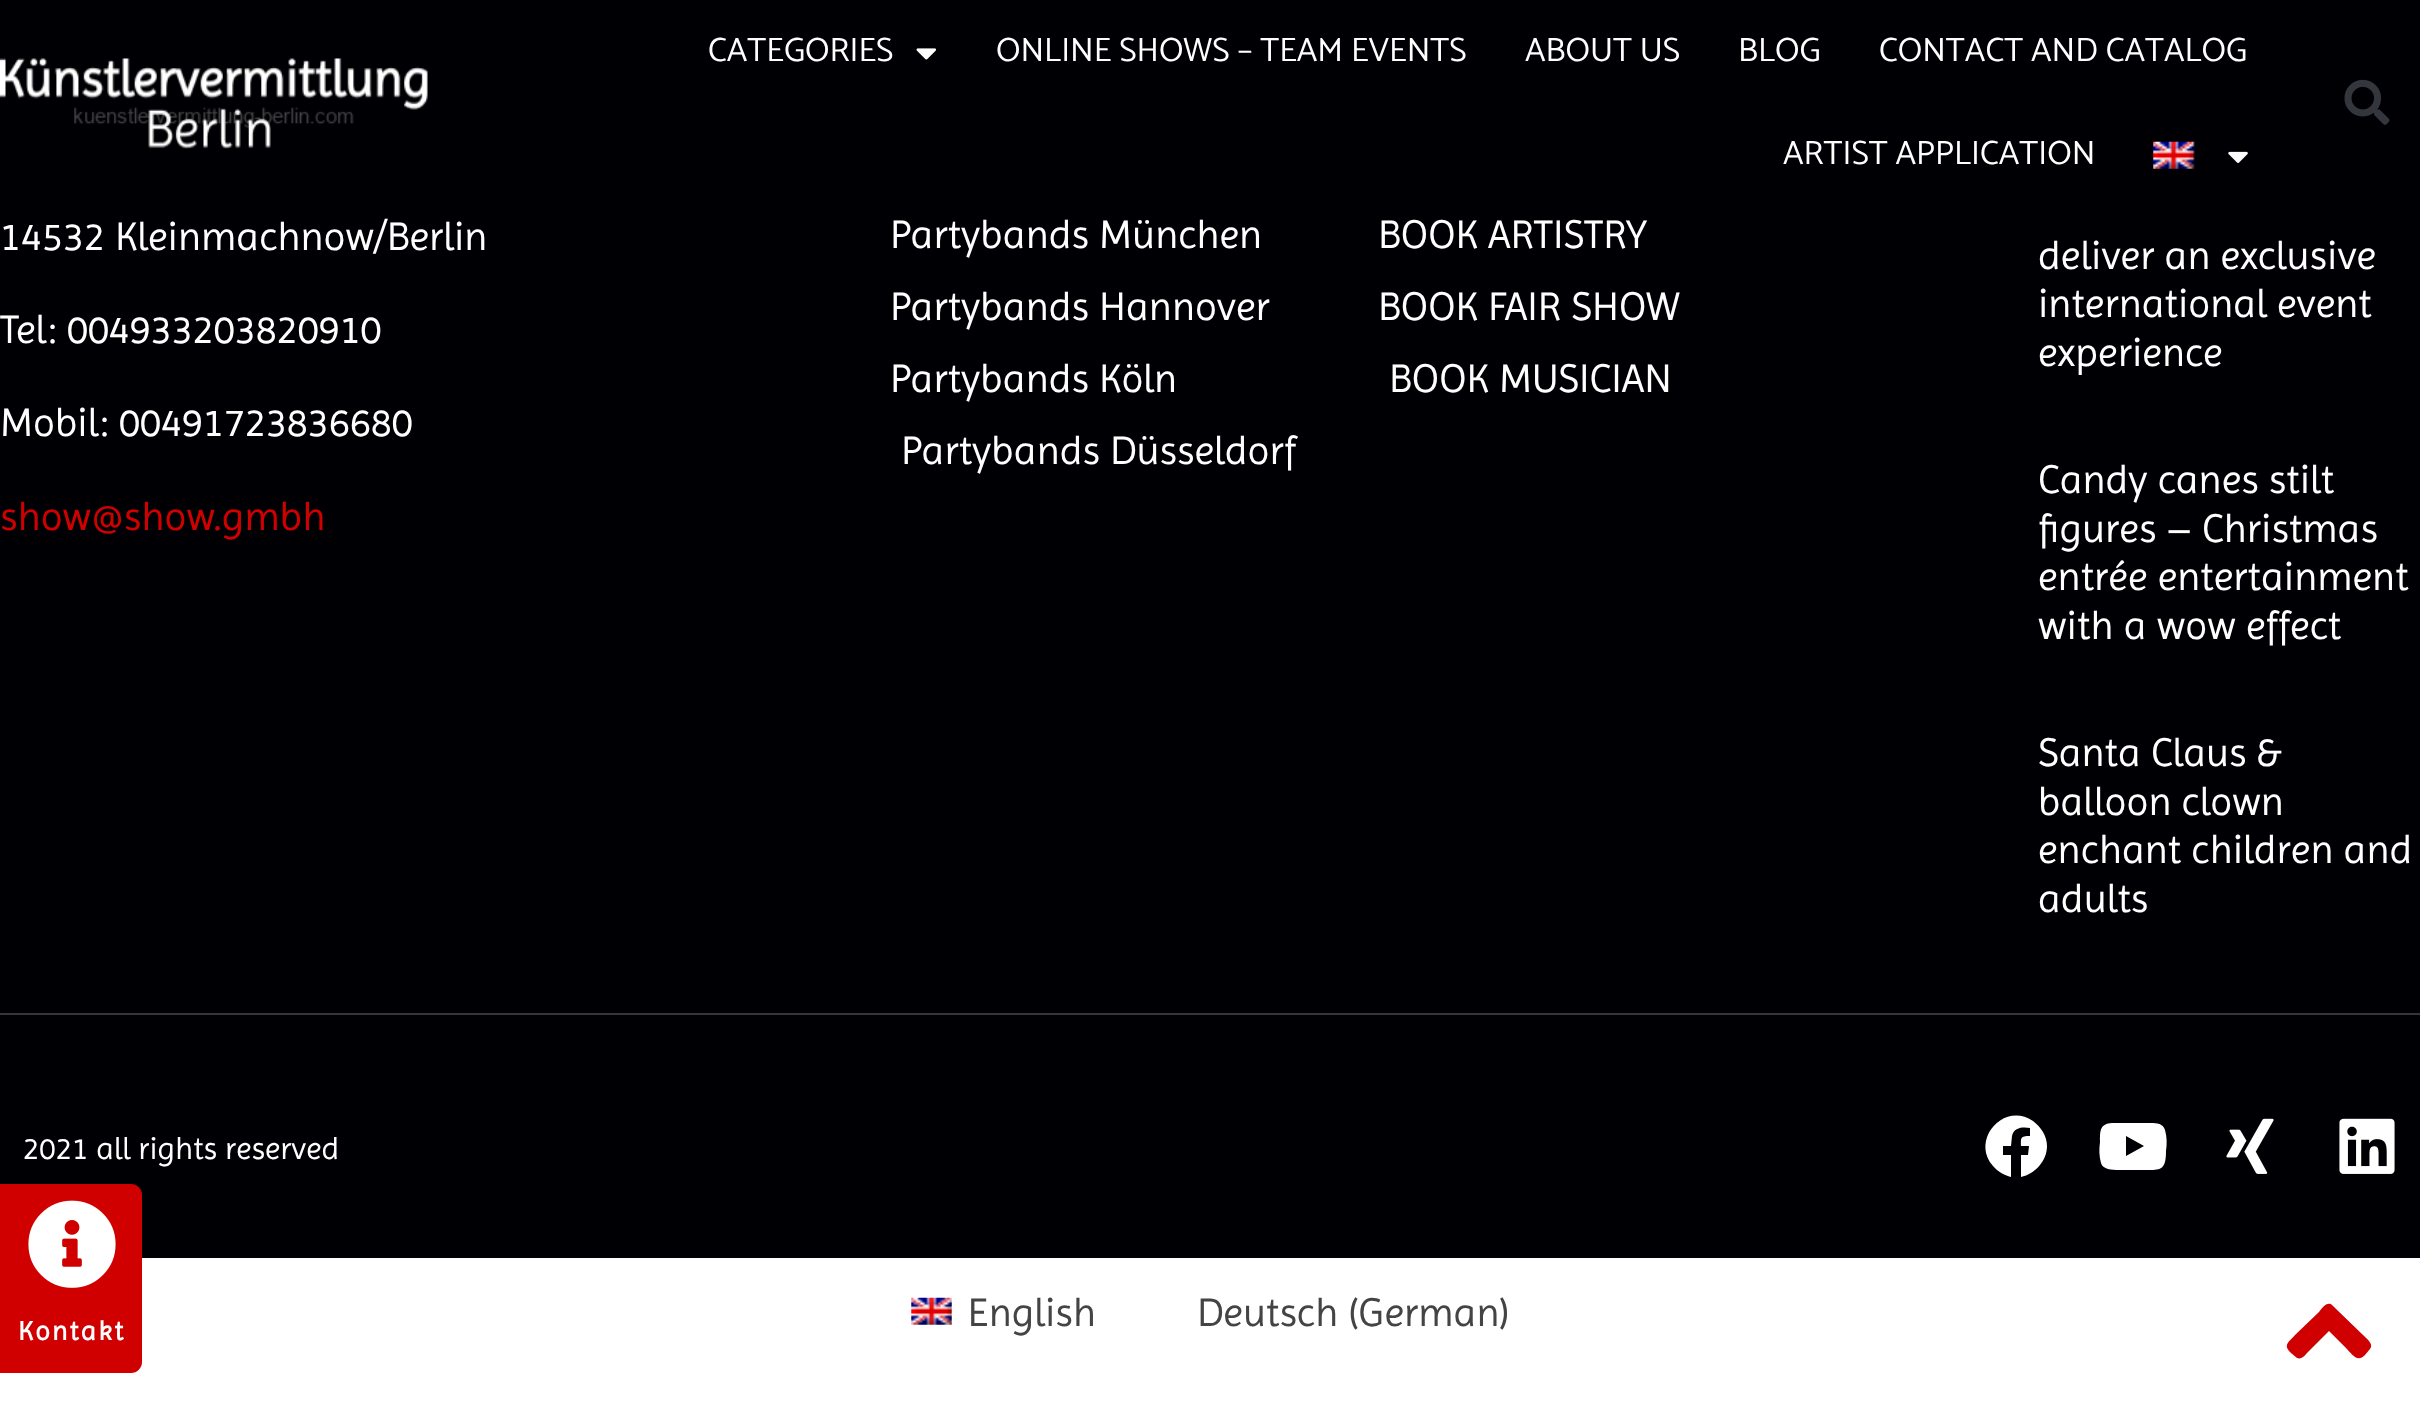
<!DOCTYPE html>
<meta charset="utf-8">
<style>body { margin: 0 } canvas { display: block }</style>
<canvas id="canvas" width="2420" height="1427"></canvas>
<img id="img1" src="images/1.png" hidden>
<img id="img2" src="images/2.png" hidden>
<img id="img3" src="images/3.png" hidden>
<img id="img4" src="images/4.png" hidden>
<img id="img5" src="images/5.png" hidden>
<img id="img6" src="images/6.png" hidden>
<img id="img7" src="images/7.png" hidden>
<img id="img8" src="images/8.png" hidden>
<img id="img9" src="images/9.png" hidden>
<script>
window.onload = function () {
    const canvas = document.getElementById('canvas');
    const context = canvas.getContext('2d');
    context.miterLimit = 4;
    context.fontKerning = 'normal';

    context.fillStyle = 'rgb(255, 255, 255)';
    context.fillRect(0, 0, 2420, 1427);
    context.fillStyle = 'rgb(0, 0, 4)';
    context.fillRect(0, 0, 2420, 1258);
    context.drawImage(document.getElementById('img1'), 916, 48, 21, 12);
    context.drawImage(document.getElementById('img2'), 2153, 141, 42, 28);
    context.drawImage(document.getElementById('img3'), 2228, 151, 20, 12);
    context.fillStyle = 'rgb(208, 0, 0)';
    context.beginPath();
    context.roundRect(-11, 1184, 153, 189, 11);
    context.fill();
    context.drawImage(document.getElementById('img4'), 28, 1200, 88, 88);
    context.drawImage(document.getElementById('img5'), 0, 58, 428, 91);
    context.drawImage(document.getElementById('img6'), 2344, 79, 46, 46);
    context.beginPath();
    context.moveTo(2333, 1306);
    context.lineTo(2363, 1335);
    context.bezierCurveTo(2367, 1339, 2374, 1344, 2370, 1349);
    context.lineTo(2365, 1355);
    context.bezierCurveTo(2357, 1363, 2352, 1354, 2346, 1348);
    context.lineTo(2329, 1331);
    context.lineTo(2308, 1352);
    context.bezierCurveTo(2305, 1355, 2302, 1360, 2297, 1358);
    context.lineTo(2291, 1353);
    context.bezierCurveTo(2283, 1345, 2288, 1343, 2295, 1335);
    context.lineTo(2319, 1312);
    context.bezierCurveTo(2322, 1308, 2328, 1300, 2333, 1306);
    context.closePath();
    context.fill();
    context.fillStyle = 'rgb(54, 54, 57)';
    context.fillRect(0, 1013, 2420, 2);
    context.fillStyle = 'rgb(255, 255, 255)';
    context.beginPath();
    context.moveTo(2047, 1146);
    context.bezierCurveTo(2047, 1161, 2035, 1174, 2021, 1177);
    context.lineTo(2021, 1155);
    context.lineTo(2028, 1155);
    context.lineTo(2029, 1146);
    context.lineTo(2021, 1146);
    context.bezierCurveTo(2021, 1138, 2020, 1136, 2030, 1136);
    context.lineTo(2030, 1128);
    context.bezierCurveTo(2023, 1127, 2014, 1127, 2012, 1136);
    context.lineTo(2011, 1146);
    context.lineTo(2003, 1146);
    context.lineTo(2003, 1155);
    context.lineTo(2011, 1155);
    context.lineTo(2011, 1177);
    context.bezierCurveTo(2004, 1175, 1998, 1172, 1993, 1166);
    context.bezierCurveTo(1970, 1140, 2004, 1101, 2033, 1121);
    context.bezierCurveTo(2041, 1127, 2047, 1136, 2047, 1146);
    context.closePath();
    context.fill();
    context.beginPath();
    context.moveTo(2165, 1130);
    context.bezierCurveTo(2167, 1137, 2167, 1144, 2166, 1151);
    context.bezierCurveTo(2166, 1172, 2160, 1170, 2140, 1170);
    context.lineTo(2124, 1170);
    context.bezierCurveTo(2117, 1170, 2103, 1171, 2101, 1163);
    context.bezierCurveTo(2099, 1156, 2099, 1149, 2100, 1142);
    context.bezierCurveTo(2100, 1130, 2100, 1124, 2112, 1123);
    context.lineTo(2127, 1123);
    context.lineTo(2147, 1123);
    context.bezierCurveTo(2153, 1123, 2163, 1122, 2165, 1130);
    context.closePath();
    context.moveTo(2126, 1156);
    context.lineTo(2144, 1146);
    context.lineTo(2126, 1136);
    context.closePath();
    context.fill();
    context.drawImage(document.getElementById('img7'), 2226, 1118, 48, 56);
    context.drawImage(document.getElementById('img8'), 2339, 1118, 56, 56);
    context.drawImage(document.getElementById('img9'), 911, 1297, 41, 28);
    context.font = '33.75px Catamaran';
    context.fillText('CATEGORIES', 708, 61);
    context.fillText('ONLINE SHOWS – TEAM EVENTS', 996, 61);
    context.fillText('ABOUT US', 1525, 61);
    context.fillText('BLOG', 1738, 61);
    context.fillText('CONTACT AND CATALOG', 1879, 61);
    context.fillText('ARTIST APPLICATION', 1783, 164);
    context.letterSpacing = '2.25px';
    context.font = 'bold 27px Imprima';
    context.fillText('Kontakt', 18, 1340);
    context.letterSpacing = '0px';
    context.font = '40.5px Imprima';
    context.fillText('14532 Kleinmachnow/Berlin', 0, 250);
    context.fillText('Tel: 004933203820910', 0, 343);
    context.fillText('Mobil: 00491723836680', 0, 436);
    context.fillStyle = 'rgb(208, 0, 0)';
    context.fillText('show@show.gmbh', 0, 530);
    context.fillStyle = 'rgb(255, 255, 255)';
    context.fillText('Partybands München', 890, 248);
    context.fillText('Partybands Hannover', 890, 320);
    context.fillText('Partybands Köln', 890, 392);
    context.fillText('Partybands Düsseldorf', 901, 464);
    context.fillText('BOOK ARTISTRY', 1378, 248);
    context.fillText('BOOK FAIR SHOW', 1378, 320);
    context.fillText('BOOK MUSICIAN', 1389, 392);
    context.fillText('deliver an exclusive', 2038, 269);
    context.fillText('international event', 2038, 317);
    context.fillText('experience', 2038, 366);
    context.fillText('Candy canes stilt', 2038, 493);
    context.fillText('figures – Christmas', 2038, 542);
    context.fillText('entrée entertainment', 2038, 590);
    context.fillText('with a wow effect', 2038, 639);
    context.fillText('Santa Claus &', 2038, 766);
    context.fillText('balloon clown', 2038, 815);
    context.fillText('enchant children and', 2038, 863);
    context.fillText('adults', 2038, 912);
    context.font = '31.5px Imprima';
    context.fillText('2021 all rights reserved', 23, 1159);
    context.font = '40.5px Imprima';
    context.fillStyle = 'rgb(68, 68, 68)';
    context.fillText('English', 968, 1326);
    context.fillText('Deutsch (German)', 1197, 1326);
};
</script>
